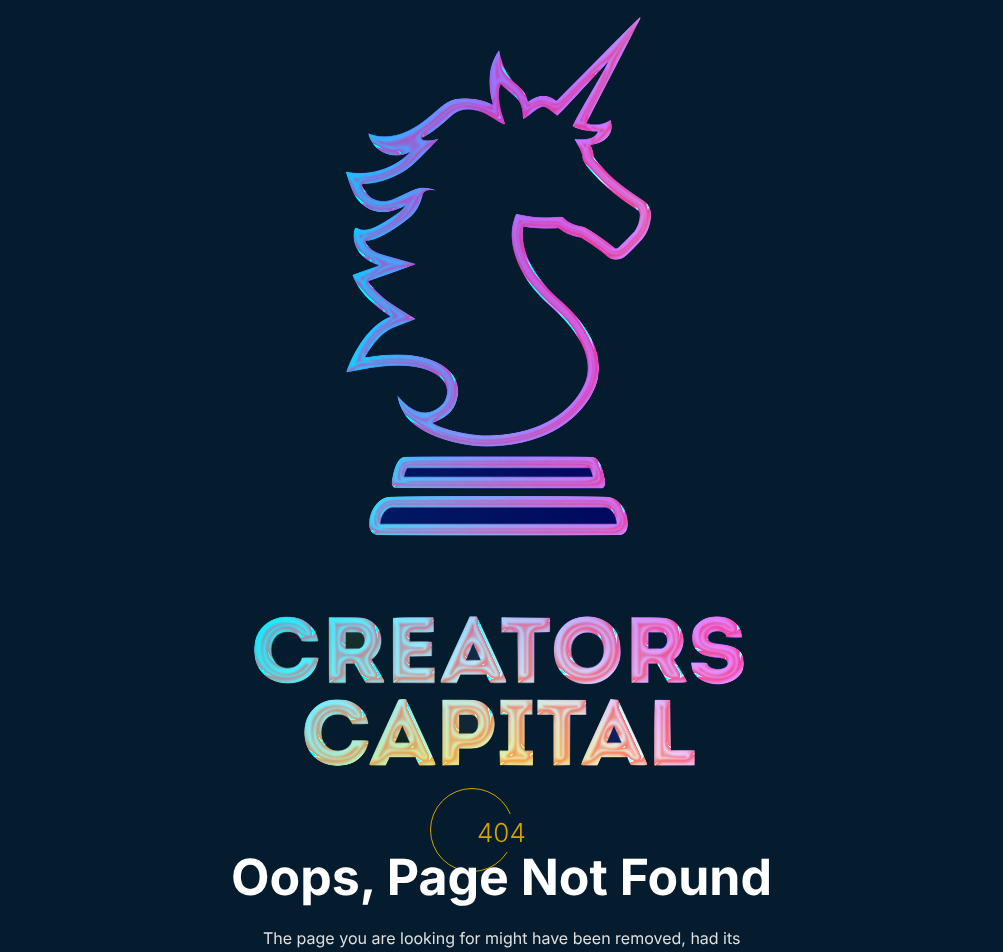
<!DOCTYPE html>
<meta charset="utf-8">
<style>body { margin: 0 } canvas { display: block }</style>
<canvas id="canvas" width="1003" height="952"></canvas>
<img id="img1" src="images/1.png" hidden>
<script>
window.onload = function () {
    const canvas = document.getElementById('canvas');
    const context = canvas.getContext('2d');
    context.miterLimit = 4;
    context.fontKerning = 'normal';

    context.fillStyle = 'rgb(4, 28, 45)';
    context.fillRect(0, 0, 1003, 952);
    context.drawImage(document.getElementById('img1'), 254, 17, 490, 749);
    context.beginPath();
    context.arc(472, 830, 41.5, 0, 2 * Math.PI);
    context.strokeStyle = 'rgb(210, 162, 0)';
    context.stroke();
    context.fillStyle = 'rgb(4, 28, 47)';
    context.fillRect(506, 814, 8, 38);
    context.font = '300 26px Inter';
    context.fillStyle = 'rgb(210, 162, 0)';
    context.fillText('404', 477, 842);
    context.font = 'bold 50px Inter';
    context.fillStyle = 'rgb(255, 255, 255)';
    context.fillText('Oops, Page Not Found', 231, 895);
    context.font = '16px Inter';
    context.fillStyle = 'rgb(222, 222, 222)';
    context.fillText('The page you are looking for might have been removed, had its', 263, 944);
};
</script>
